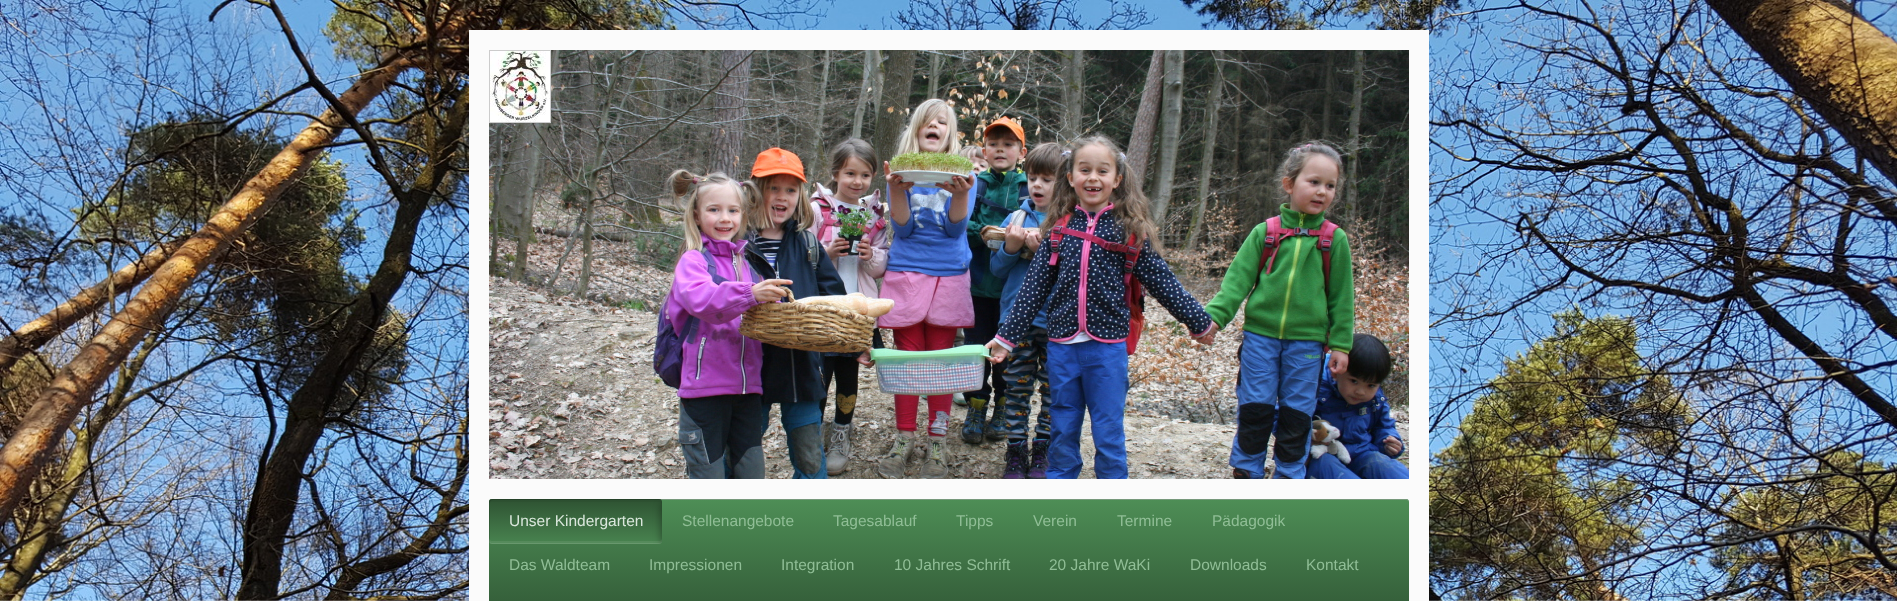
<!DOCTYPE html>
<meta charset="utf-8">
<style>body { margin: 0 } canvas { display: block }</style>
<canvas id="canvas" width="1897" height="601"></canvas>
<img id="img1" src="images/1.png" hidden>
<img id="img2" src="images/2.png" hidden>
<img id="img3" src="images/3.png" hidden>
<script>
window.onload = function () {
    const canvas = document.getElementById('canvas');
    const context = canvas.getContext('2d');
    context.miterLimit = 4;
    context.fontKerning = 'normal';
    let gradient;

    context.fillStyle = 'rgb(255, 255, 255)';
    context.fillRect(0, 0, 1897, 601);
    context.drawImage(document.getElementById('img1'), 0, 0, 1897, 601);
    context.fillStyle = 'rgb(251, 251, 251)';
    context.fillRect(469, 30, 960, 571);
    context.drawImage(document.getElementById('img2'), 489, 50, 920, 429);
    context.strokeStyle = 'rgb(204, 204, 204)';
    context.strokeRect(489.5, 50.5, 61, 72);
    context.drawImage(document.getElementById('img3'), 490, 51, 60, 71);
    gradient = context.createLinearGradient(489, 499, 489, 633);
    gradient.addColorStop(0, 'rgb(78, 142, 86)');
    gradient.addColorStop(1, 'rgb(46, 82, 50)');
    context.fillStyle = gradient;
    context.beginPath();
    context.roundRect(489, 499, 920, 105, 3);
    context.fill();
    context.fillStyle = 'rgb(119, 153, 123)';
    context.beginPath();
    context.moveTo(492, 500);
    context.lineTo(1406, 500);
    context.bezierCurveTo(1408, 500, 1409, 501, 1409, 503);
    context.bezierCurveTo(1409, 501, 1408, 499, 1406, 499);
    context.lineTo(492, 499);
    context.bezierCurveTo(490, 499, 489, 501, 489, 503);
    context.bezierCurveTo(489, 501, 490, 500, 492, 500);
    context.closePath();
    context.fill();
    gradient = context.createLinearGradient(489, 544, 489, 499);
    gradient.addColorStop(0, 'rgb(73, 132, 80)');
    gradient.addColorStop(1, 'rgb(46, 82, 50)');
    context.fillStyle = gradient;
    context.beginPath();
    context.roundRect(489, 499, 173, 45, 3);
    context.fill();
    context.fillStyle = 'rgba(0, 0, 0, 0.15)';
    context.beginPath();
    context.moveTo(493, 500);
    context.lineTo(661, 500);
    context.bezierCurveTo(661, 499, 660, 499, 659, 499);
    context.lineTo(492, 499);
    context.bezierCurveTo(490, 499, 489, 500, 489, 502);
    context.lineTo(489, 541);
    context.bezierCurveTo(489, 542, 489, 543, 490, 543);
    context.lineTo(490, 510);
    context.bezierCurveTo(490, 507, 488, 500, 493, 500);
    context.closePath();
    context.fill();
    context.fillStyle = 'rgba(0, 0, 0, 0.04)';
    context.beginPath();
    context.moveTo(492, 502);
    context.lineTo(659, 502);
    context.bezierCurveTo(661, 502, 662, 503, 662, 505);
    context.lineTo(662, 502);
    context.bezierCurveTo(662, 500, 661, 499, 659, 499);
    context.lineTo(492, 499);
    context.bezierCurveTo(490, 499, 489, 500, 489, 502);
    context.lineTo(489, 505);
    context.bezierCurveTo(489, 503, 490, 502, 492, 502);
    context.closePath();
    context.fill();
    context.fillStyle = 'rgba(255, 255, 255, 0.08)';
    context.beginPath();
    context.moveTo(489, 538);
    context.lineTo(489, 541);
    context.bezierCurveTo(489, 543, 490, 544, 492, 544);
    context.lineTo(659, 544);
    context.bezierCurveTo(661, 544, 662, 543, 662, 541);
    context.lineTo(662, 538);
    context.bezierCurveTo(662, 540, 661, 541, 659, 541);
    context.lineTo(491, 541);
    context.lineTo(490, 540);
    context.closePath();
    context.fill();
    context.fillStyle = 'rgba(255, 255, 255, 0.1)';
    context.beginPath();
    context.moveTo(489, 540);
    context.lineTo(489, 541);
    context.bezierCurveTo(489, 543, 490, 544, 492, 544);
    context.lineTo(659, 544);
    context.bezierCurveTo(661, 544, 662, 543, 662, 541);
    context.lineTo(662, 540);
    context.bezierCurveTo(662, 542, 661, 543, 659, 543);
    context.lineTo(491, 543);
    context.lineTo(490, 542);
    context.closePath();
    context.fill();
    context.save();
    context.beginPath();
    context.roundRect(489, 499, 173, 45, 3);
    context.clip();
    context.fillStyle = 'rgba(0, 0, 0, 0.3)';
    context.filter = 'blur(3.5px)';
    context.beginPath();
    context.roundRect(660, 501, 16, 45, 8);
    context.fill();
    context.filter = 'none';
    context.restore();
    context.font = '15.5px Liberation Sans';
    context.fillStyle = 'rgb(218, 231, 220)';
    context.fillText('Unser Kindergarten', 509, 526);
    context.fillStyle = 'rgb(144, 190, 150)';
    context.fillText('Stellenangebote', 682, 526);
    context.fillText('Tagesablauf', 833, 526);
    context.fillText('Tipps', 956, 526);
    context.fillText('Verein', 1033, 526);
    context.fillText('Termine', 1117, 526);
    context.fillText('Pädagogik', 1212, 526);
    context.fillText('Das Waldteam', 509, 570);
    context.fillText('Impressionen', 649, 570);
    context.fillText('Integration', 781, 570);
    context.fillText('10 Jahres Schrift', 894, 570);
    context.fillText('20 Jahre WaKi', 1049, 570);
    context.fillText('Downloads', 1190, 570);
    context.fillText('Kontakt', 1306, 570);
};
</script>
